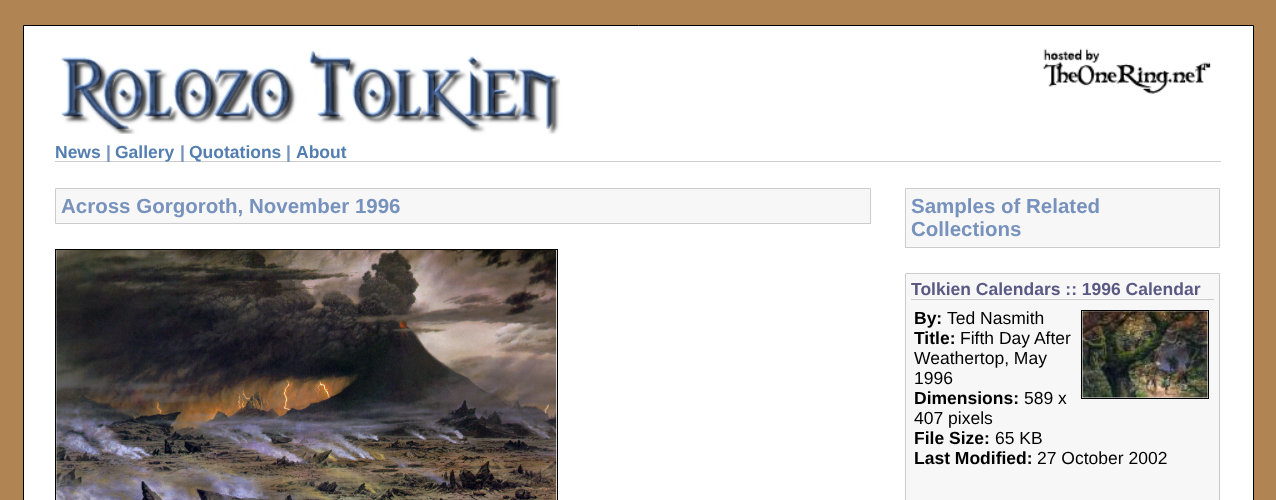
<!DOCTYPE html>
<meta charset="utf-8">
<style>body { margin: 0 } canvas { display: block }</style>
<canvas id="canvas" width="1276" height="500"></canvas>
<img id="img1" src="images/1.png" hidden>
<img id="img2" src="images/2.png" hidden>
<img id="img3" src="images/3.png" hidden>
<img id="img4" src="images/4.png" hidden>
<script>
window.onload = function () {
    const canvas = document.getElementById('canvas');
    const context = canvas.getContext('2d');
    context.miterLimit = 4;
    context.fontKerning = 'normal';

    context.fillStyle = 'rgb(176, 133, 83)';
    context.fillRect(0, 0, 1276, 500);
    context.fillStyle = 'rgb(255, 255, 255)';
    context.beginPath();
    context.rect(23.5, 25.5, 1230, 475);
    context.fill();
    context.strokeStyle = 'rgb(0, 0, 0)';
    context.stroke();
    context.drawImage(document.getElementById('img1'), 61, 50, 500, 84);
    context.drawImage(document.getElementById('img2'), 1042, 48, 169, 46);
    context.fillStyle = 'rgb(204, 204, 204)';
    context.fillRect(55, 161, 1166, 1);
    context.fillStyle = 'rgb(247, 247, 247)';
    context.beginPath();
    context.rect(55.5, 188.5, 815, 35);
    context.fill();
    context.strokeStyle = 'rgb(204, 204, 204)';
    context.stroke();
    context.strokeStyle = 'rgb(0, 0, 0)';
    context.strokeRect(55.5, 249.5, 502, 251);
    context.drawImage(document.getElementById('img3'), 56, 250, 501, 250);
    context.beginPath();
    context.rect(905.5, 188.5, 314, 59);
    context.fill();
    context.strokeStyle = 'rgb(204, 204, 204)';
    context.stroke();
    context.beginPath();
    context.rect(905.5, 273.5, 314, 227);
    context.fill();
    context.stroke();
    context.fillStyle = 'rgb(204, 204, 204)';
    context.fillRect(911, 299, 303, 1);
    context.strokeStyle = 'rgb(0, 0, 0)';
    context.strokeRect(1081.5, 310.5, 127, 88);
    context.drawImage(document.getElementById('img4'), 1082, 311, 126, 87);
    context.font = 'bold 17.5px Liberation Sans';
    context.fillStyle = 'rgb(83, 126, 176)';
    context.fillText('News', 55, 158);
    context.fillStyle = 'rgb(119, 146, 188)';
    context.fillText('|', 106, 158);
    context.fillStyle = 'rgb(83, 126, 176)';
    context.fillText('Gallery', 115, 158);
    context.fillStyle = 'rgb(119, 146, 188)';
    context.fillText('|', 180, 158);
    context.fillStyle = 'rgb(83, 126, 176)';
    context.fillText('Quotations', 189, 158);
    context.fillStyle = 'rgb(119, 146, 188)';
    context.fillText('|', 286, 158);
    context.fillStyle = 'rgb(83, 126, 176)';
    context.fillText('About', 296, 158);
    context.font = 'bold 20.5px Liberation Sans';
    context.fillStyle = 'rgb(119, 146, 188)';
    context.fillText('Across Gorgoroth, November 1996', 61, 213);
    context.fillText('Samples of Related', 911, 213);
    context.fillText('Collections', 911, 236);
    context.font = 'bold 17.5px Liberation Sans';
    context.fillStyle = 'rgb(89, 89, 131)';
    context.fillText('Tolkien Calendars :: 1996 Calendar', 911, 295);
    context.fillStyle = 'rgb(0, 0, 0)';
    context.fillText('By:', 914, 324);
    context.font = '17.5px Liberation Sans';
    context.fillText('Ted Nasmith', 947, 324);
    context.font = 'bold 17.5px Liberation Sans';
    context.fillText('Title:', 914, 344);
    context.font = '17.5px Liberation Sans';
    context.fillText('Fifth Day After', 960, 344);
    context.fillText('Weathertop, May', 914, 364);
    context.fillText('1996', 914, 384);
    context.font = 'bold 17.5px Liberation Sans';
    context.fillText('Dimensions:', 914, 404);
    context.font = '17.5px Liberation Sans';
    context.fillText('589 x', 1024, 404);
    context.fillText('407 pixels', 914, 424);
    context.font = 'bold 17.5px Liberation Sans';
    context.fillText('File Size:', 914, 444);
    context.font = '17.5px Liberation Sans';
    context.fillText('65 KB', 995, 444);
    context.font = 'bold 17.5px Liberation Sans';
    context.fillText('Last Modified:', 914, 464);
    context.font = '17.5px Liberation Sans';
    context.fillText('27 October 2002', 1037, 464);
};
</script>
